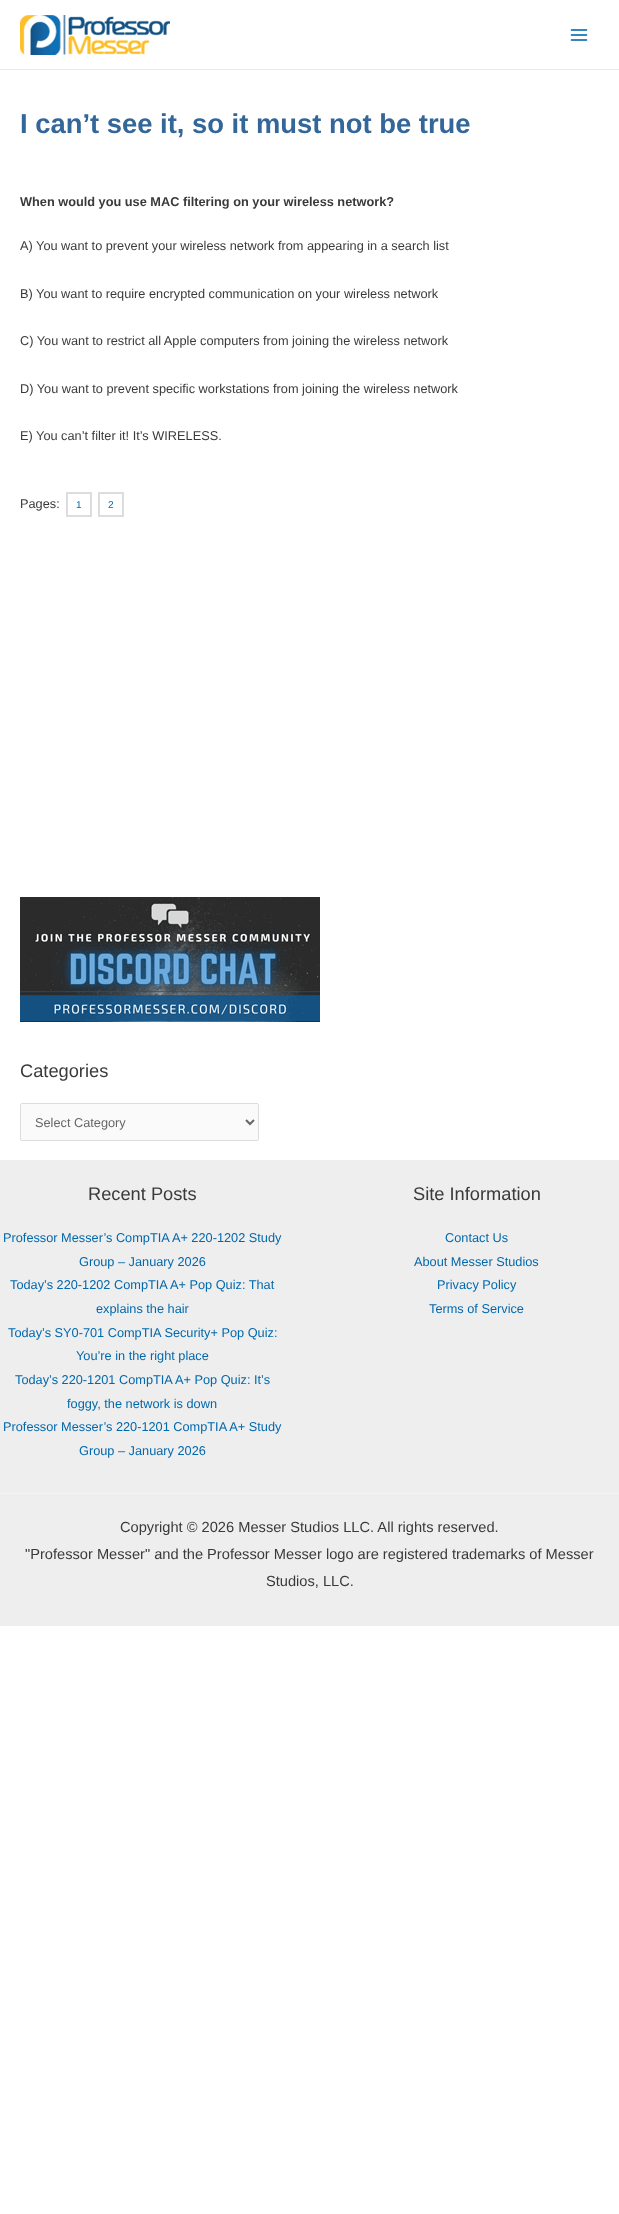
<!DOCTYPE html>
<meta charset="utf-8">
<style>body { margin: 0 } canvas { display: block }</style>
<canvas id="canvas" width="619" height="2214"></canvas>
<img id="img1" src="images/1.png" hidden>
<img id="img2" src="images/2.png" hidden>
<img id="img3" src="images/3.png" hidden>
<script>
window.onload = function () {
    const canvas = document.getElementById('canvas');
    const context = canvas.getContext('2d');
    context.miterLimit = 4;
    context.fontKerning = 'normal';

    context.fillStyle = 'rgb(255, 255, 255)';
    context.fillRect(0, 0, 619, 2214);
    context.fillStyle = 'rgb(234, 234, 234)';
    context.fillRect(0, 69, 619, 1);
    context.drawImage(document.getElementById('img1'), 20, 15, 150, 40);
    context.drawImage(document.getElementById('img2'), 570, 29, 18, 12);
    context.strokeStyle = 'rgb(221, 221, 221)';
    context.lineWidth = 2;
    context.strokeRect(67, 493, 24, 23);
    context.strokeRect(99, 493, 24, 23);
    context.drawImage(document.getElementById('img3'), 20, 897, 300, 125);
    context.fillStyle = 'rgb(250, 250, 250)';
    context.beginPath();
    context.roundRect(20.5, 1103.5, 238, 37, 1.5);
    context.fill();
    context.lineWidth = 1;
    context.stroke();
    context.beginPath();
    context.moveTo(246, 1120);
    context.lineTo(250, 1124);
    context.lineTo(254, 1120);
    context.strokeStyle = 'rgb(102, 102, 102)';
    context.lineWidth = 2;
    context.stroke();
    context.fillStyle = 'rgb(238, 238, 238)';
    context.fillRect(0, 1160, 619, 333);
    context.fillRect(0, 1494, 619, 132);
    context.fillStyle = 'rgb(242, 245, 247)';
    context.fillRect(0, 1493, 619, 1);
    context.font = 'bold 27.4px Liberation Sans';
    context.fillStyle = 'rgb(51, 102, 153)';
    context.fillText('I can’t see it, so it must not be true', 20, 133);
    context.font = 'bold 12.75px Liberation Sans';
    context.fillStyle = 'rgb(58, 58, 58)';
    context.fillText('When would you use MAC filtering on your wireless network?', 20, 206);
    context.font = '12.75px Liberation Sans';
    context.fillText('A) You want to prevent your wireless network from appearing in a search list', 20, 250);
    context.fillText('B) You want to require encrypted communication on your wireless network', 20, 298);
    context.fillText('C) You want to restrict all Apple computers from joining the wireless network', 20, 345);
    context.fillText('D) You want to prevent specific workstations from joining the wireless network', 20, 393);
    context.fillText('E) You can’t filter it! It’s WIRELESS.', 20, 440);
    context.fillText('Pages:', 20, 508);
    context.font = '10px Liberation Sans';
    context.fillStyle = 'rgb(2, 104, 172)';
    context.fillText('1', 76, 508);
    context.fillText('2', 108, 508);
    context.font = '18.25px Liberation Sans';
    context.fillStyle = 'rgb(58, 58, 58)';
    context.fillText('Categories', 20, 1077);
    context.font = '12.75px Liberation Sans';
    context.fillStyle = 'rgb(102, 102, 102)';
    context.fillText('Select Category', 35, 1127);
    context.font = '18.25px Liberation Sans';
    context.fillStyle = 'rgb(58, 58, 58)';
    context.fillText('Recent Posts', 88, 1200);
    context.font = '12.75px Liberation Sans';
    context.fillStyle = 'rgb(2, 104, 172)';
    context.fillText('Professor Messer’s CompTIA A+ 220-1202 Study', 3, 1242);
    context.fillText('Group – January 2026', 79, 1266);
    context.fillText('Today’s 220-1202 CompTIA A+ Pop Quiz: That', 10, 1289);
    context.fillText('explains the hair', 96, 1313);
    context.fillText('Today’s SY0-701 CompTIA Security+ Pop Quiz:', 8, 1337);
    context.fillText('You’re in the right place', 76, 1360);
    context.fillText('Today’s 220-1201 CompTIA A+ Pop Quiz: It’s', 15, 1384);
    context.fillText('foggy, the network is down', 67, 1408);
    context.fillText('Professor Messer’s 220-1201 CompTIA A+ Study', 3, 1431);
    context.fillText('Group – January 2026', 79, 1455);
    context.font = '18.25px Liberation Sans';
    context.fillStyle = 'rgb(58, 58, 58)';
    context.fillText('Site Information', 413, 1200);
    context.font = '12.75px Liberation Sans';
    context.fillStyle = 'rgb(2, 104, 172)';
    context.fillText('Contact Us', 445, 1242);
    context.fillText('About Messer Studios', 414, 1266);
    context.fillText('Privacy Policy', 437, 1289);
    context.fillText('Terms of Service', 429, 1313);
    context.font = '14.65px Liberation Sans';
    context.fillStyle = 'rgb(58, 58, 58)';
    context.fillText('Copyright © 2026 Messer Studios LLC. All rights reserved.', 120, 1532);
    context.fillText('"Professor Messer" and the Professor Messer logo are registered trademarks of Messer', 25, 1559);
    context.fillText('Studios, LLC.', 266, 1586);
};
</script>
